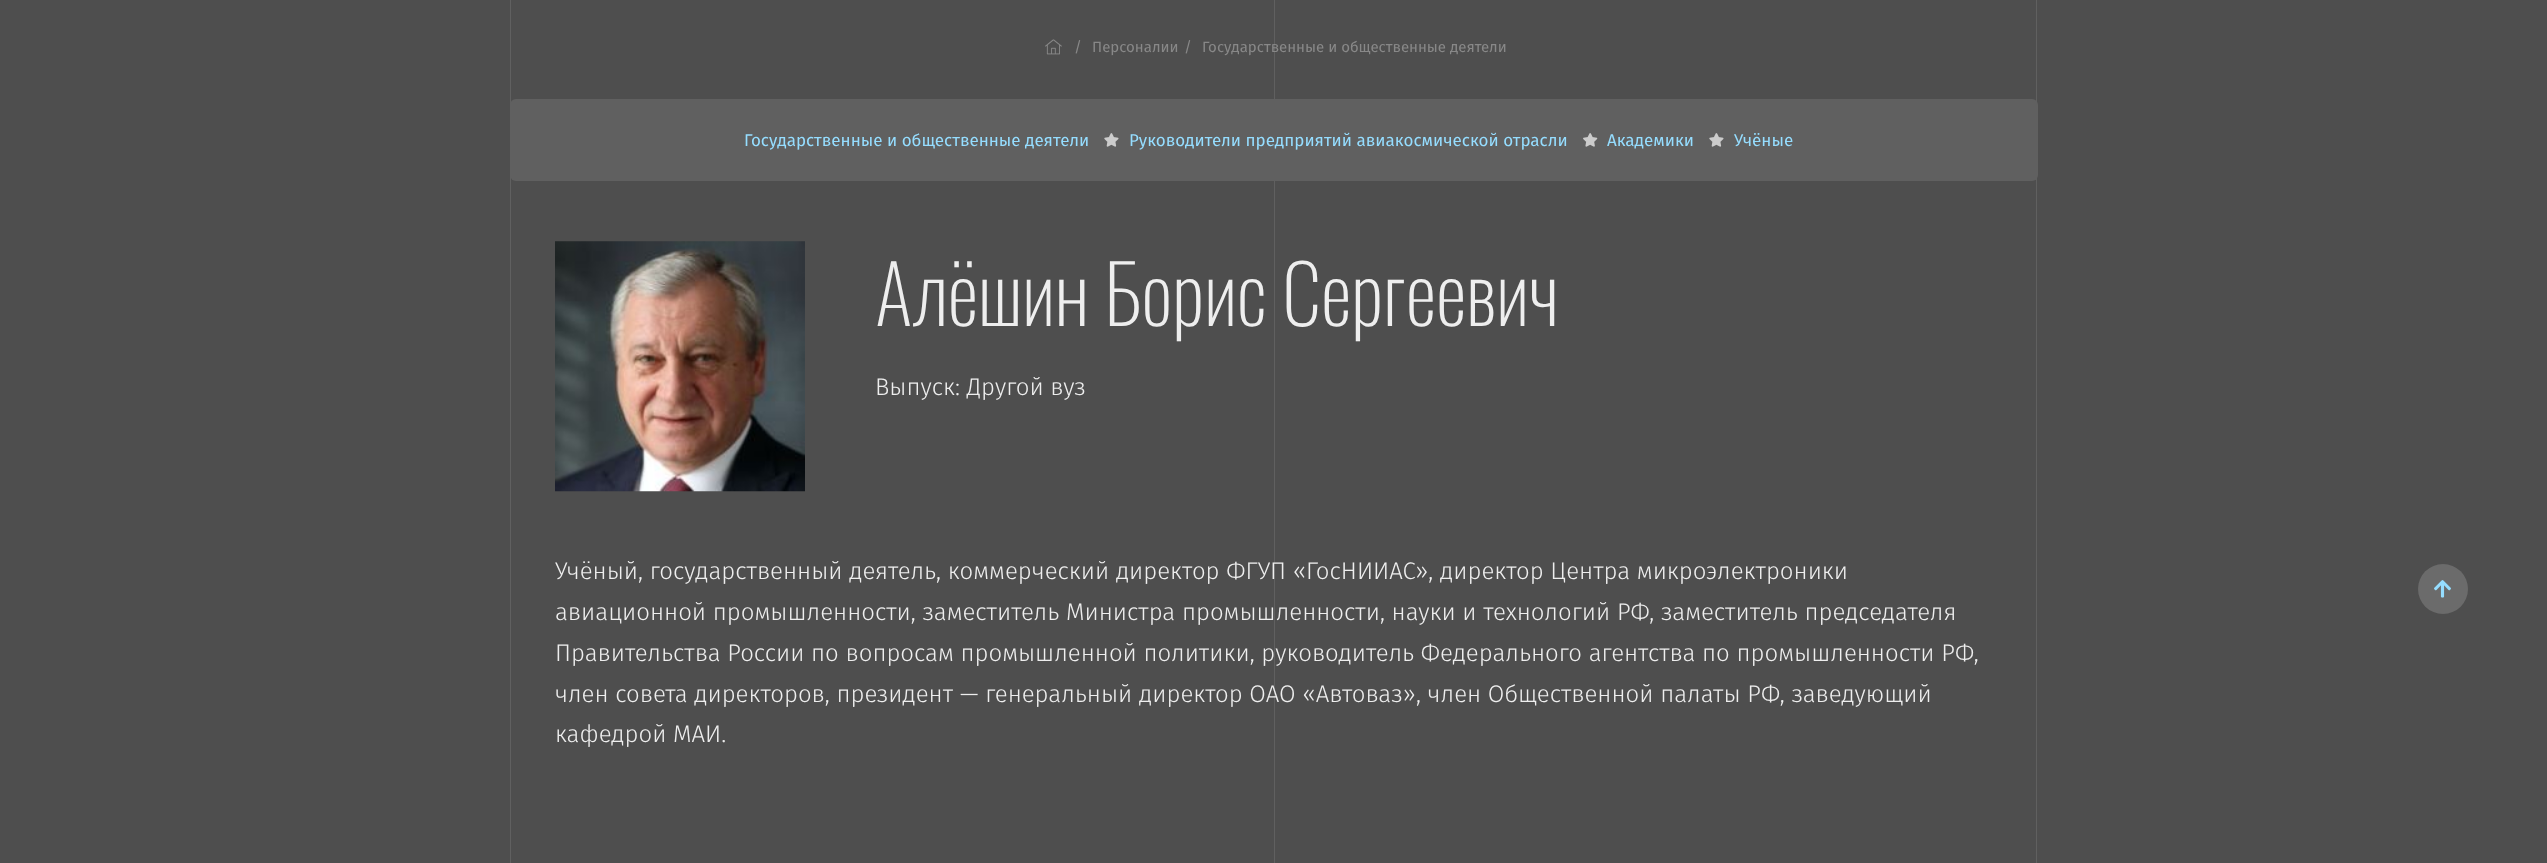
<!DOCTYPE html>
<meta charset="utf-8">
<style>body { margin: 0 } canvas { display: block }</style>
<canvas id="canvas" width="2547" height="863"></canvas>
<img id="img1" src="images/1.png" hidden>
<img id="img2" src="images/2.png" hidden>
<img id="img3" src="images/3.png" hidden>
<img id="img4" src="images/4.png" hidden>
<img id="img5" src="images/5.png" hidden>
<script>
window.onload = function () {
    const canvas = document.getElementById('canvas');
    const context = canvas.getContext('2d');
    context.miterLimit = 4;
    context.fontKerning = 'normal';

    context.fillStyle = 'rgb(78, 78, 78)';
    context.fillRect(0, 0, 2547, 863);
    context.fillStyle = 'rgb(96, 96, 96)';
    context.fillRect(510, 0, 1, 863);
    context.fillStyle = 'rgba(255, 255, 255, 0.1)';
    context.fillRect(1274, 0, 1, 863);
    context.fillStyle = 'rgb(96, 96, 96)';
    context.fillRect(2036, 0, 1, 863);
    context.drawImage(document.getElementById('img1'), 1045, 39, 17, 16);
    context.beginPath();
    context.roundRect(510, 99, 1528, 82, 6);
    context.fill();
    context.drawImage(document.getElementById('img2'), 1104, 133, 15, 14);
    context.drawImage(document.getElementById('img3'), 1583, 133, 15, 14);
    context.drawImage(document.getElementById('img2'), 1709, 133, 15, 14);
    context.drawImage(document.getElementById('img4'), 555, 241, 250, 251);
    context.fillStyle = 'rgb(107, 107, 107)';
    context.beginPath();
    context.arc(2443, 589, 25, 0, 2 * Math.PI);
    context.fill();
    context.drawImage(document.getElementById('img5'), 2434, 580, 17, 18);
    context.font = '15px Fira Sans';
    context.fillStyle = 'rgb(136, 136, 136)';
    context.fillText('/', 1074, 52);
    context.fillText('Персоналии', 1092, 52);
    context.fillText('/', 1184, 52);
    context.fillText('Государственные и общественные деятели', 1202, 52);
    context.font = '17px Fira Sans';
    context.fillStyle = 'rgb(149, 221, 255)';
    context.fillText('Государственные и общественные деятели', 744, 146);
    context.fillText('Руководители предприятий авиакосмической отрасли', 1129, 146);
    context.fillText('Академики', 1607, 146);
    context.fillText('Учёные', 1734, 146);
    context.font = '200 80px Oswald';
    context.fillStyle = 'rgb(238, 238, 238)';
    context.fillText('Алёшин Борис Сергеевич', 875, 326);
    context.font = '300 24px Fira Sans';
    context.fillText('Выпуск: Другой вуз', 875, 395);
    context.fillText('Учёный, государственный деятель, коммерческий директор ФГУП «ГосНИИАС», директор Центра микроэлектроники', 555, 579);
    context.fillText('авиационной промышленности, заместитель Министра промышленности, науки и технологий РФ, заместитель председателя', 555, 620);
    context.fillText('Правительства России по вопросам промышленной политики, руководитель Федерального агентства по промышленности РФ,', 555, 661);
    context.fillText('член совета директоров, президент — генеральный директор ОАО «Автоваз», член Общественной палаты РФ, заведующий', 555, 702);
    context.fillText('кафедрой МАИ.', 555, 742);
};
</script>
